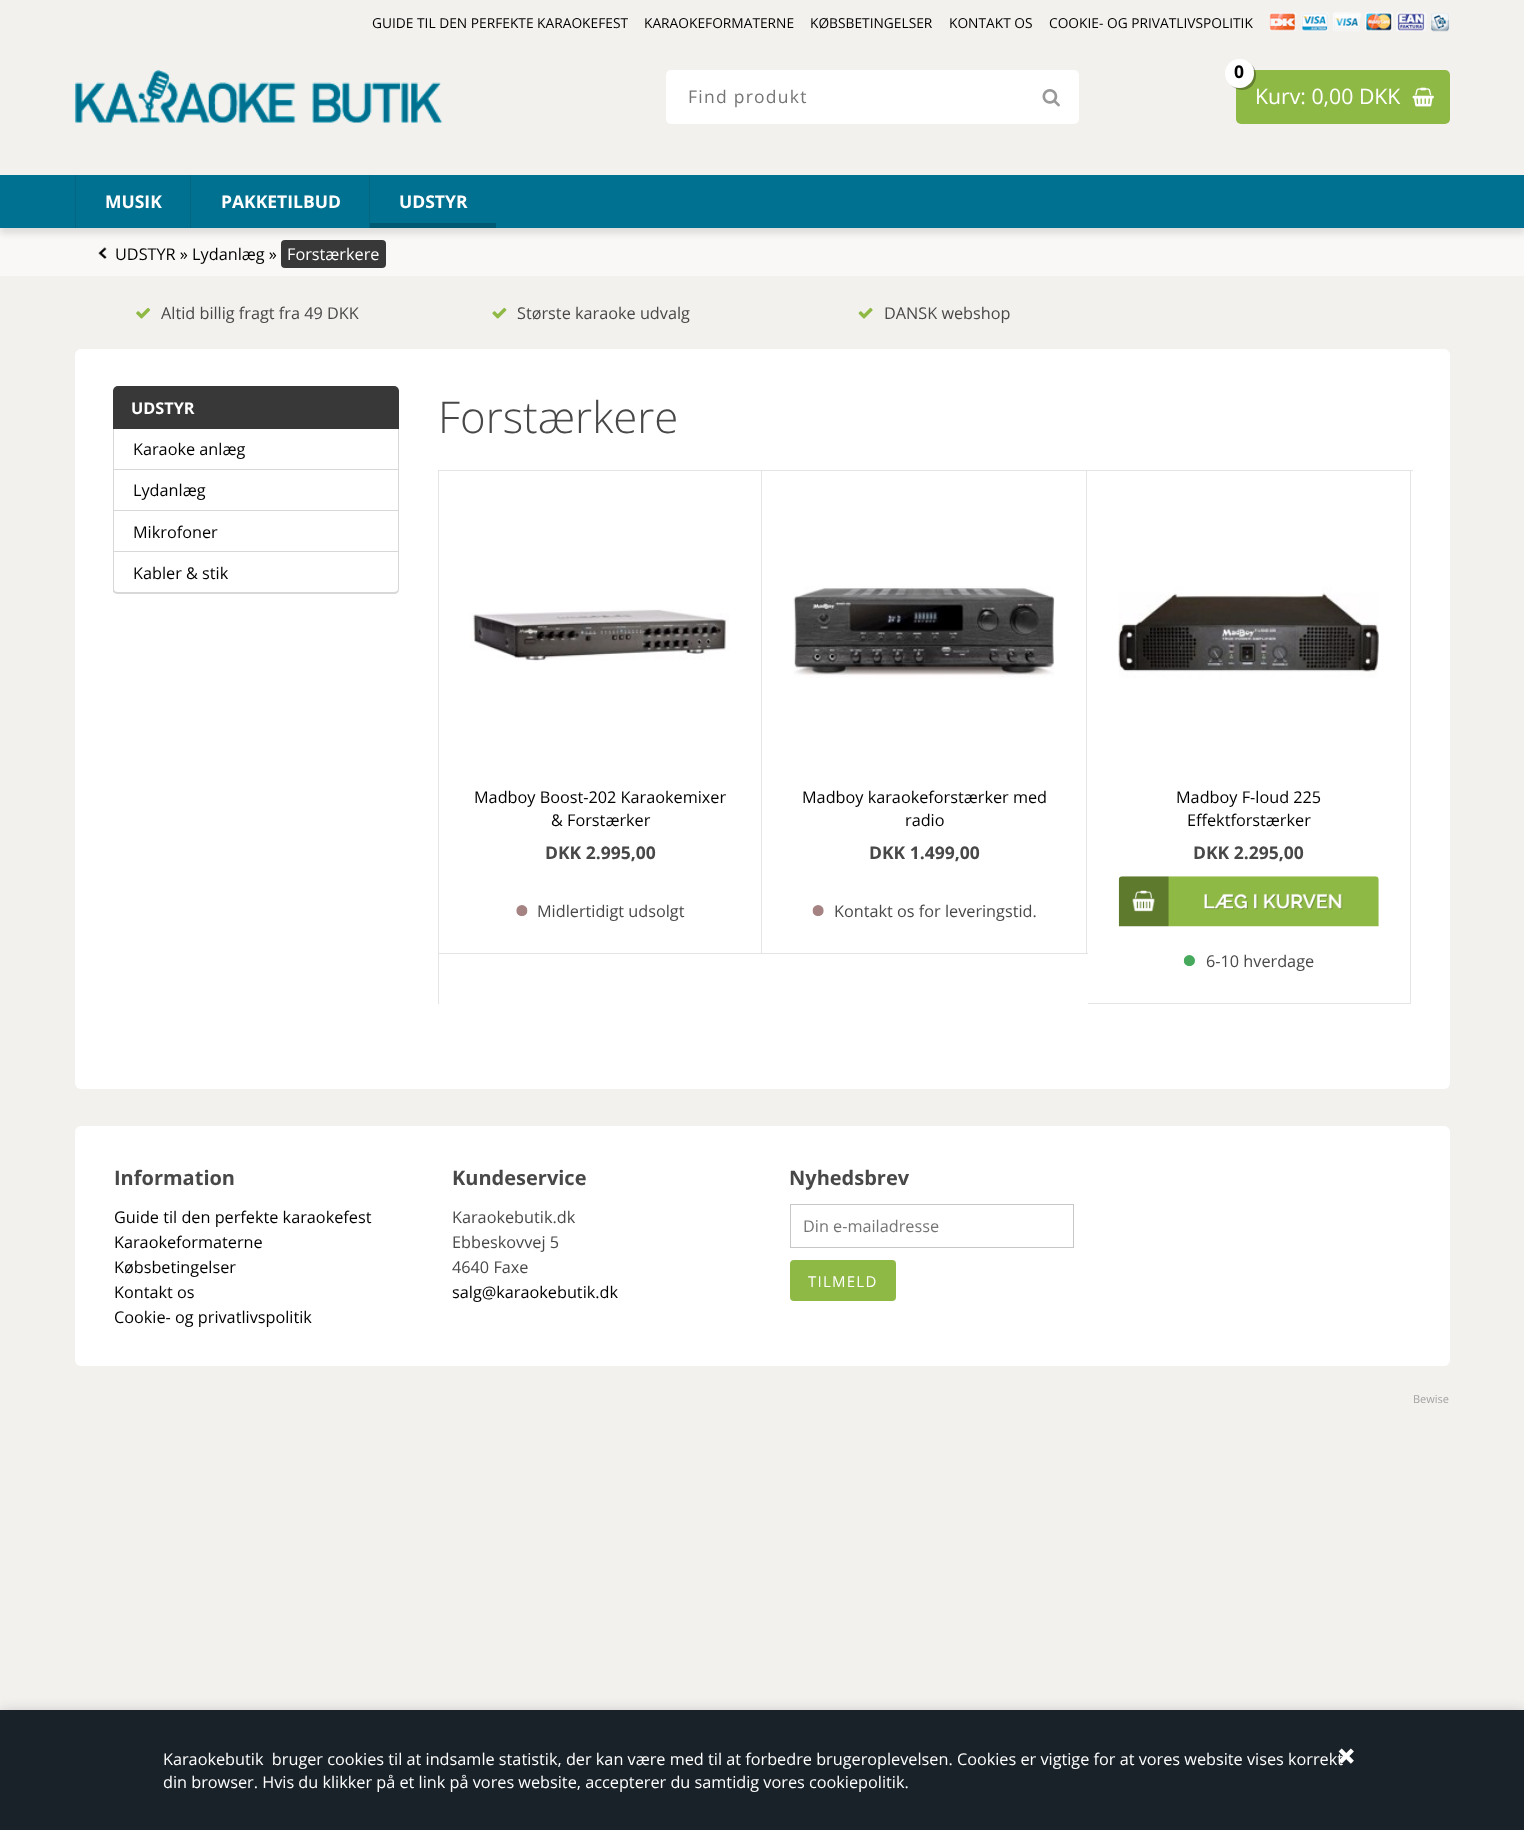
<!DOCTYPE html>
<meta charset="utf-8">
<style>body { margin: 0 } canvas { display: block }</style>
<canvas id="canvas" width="1524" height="1830"></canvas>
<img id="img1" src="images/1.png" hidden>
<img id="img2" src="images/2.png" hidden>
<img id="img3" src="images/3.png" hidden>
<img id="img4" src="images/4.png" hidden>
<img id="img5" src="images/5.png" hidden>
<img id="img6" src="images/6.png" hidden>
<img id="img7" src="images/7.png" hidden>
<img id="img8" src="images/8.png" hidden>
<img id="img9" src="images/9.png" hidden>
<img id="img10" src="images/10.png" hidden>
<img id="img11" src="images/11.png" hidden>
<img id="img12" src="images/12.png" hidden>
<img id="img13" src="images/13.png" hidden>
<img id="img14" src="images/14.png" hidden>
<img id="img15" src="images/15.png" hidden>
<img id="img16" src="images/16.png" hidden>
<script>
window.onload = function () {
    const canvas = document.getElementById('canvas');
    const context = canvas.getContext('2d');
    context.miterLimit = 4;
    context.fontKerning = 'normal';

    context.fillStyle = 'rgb(243, 241, 238)';
    context.fillRect(0, 0, 1524, 1830);
    context.drawImage(document.getElementById('img1'), 1269, 12, 181, 20);
    context.drawImage(document.getElementById('img2'), 75, 70, 368, 53);
    context.fillStyle = 'rgb(255, 255, 255)';
    context.beginPath();
    context.roundRect(666, 70, 413, 54, 5);
    context.fill();
    context.drawImage(document.getElementById('img3'), 1042, 89, 18, 18);
    context.fillStyle = 'rgb(143, 185, 69)';
    context.beginPath();
    context.roundRect(1236, 70, 214, 54, 5);
    context.fill();
    context.drawImage(document.getElementById('img4'), 1412, 87, 22, 20);
    context.fillStyle = 'rgb(249, 248, 247)';
    context.fillRect(0, 228, 1524, 48);
    context.fillStyle = 'rgb(56, 56, 56)';
    context.beginPath();
    context.roundRect(281, 240, 105, 28, 4);
    context.fill();
    context.fillStyle = 'rgba(0, 0, 0, 0.1)';
    context.filter = 'blur(3px)';
    context.beginPath();
    context.rect(0, 181, 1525, 53);
    context.fill();
    context.filter = 'none';
    context.fillStyle = 'rgb(0, 113, 144)';
    context.fillRect(0, 175, 1524, 53);
    context.fillStyle = 'rgb(0, 102, 130)';
    context.fillRect(75, 175, 1, 53);
    context.fillRect(190, 175, 1, 53);
    context.fillRect(369, 175, 1, 53);
    context.fillStyle = 'rgb(0, 90, 115)';
    context.fillRect(370, 223, 126, 5);
    context.drawImage(document.getElementById('img5'), 98, 247, 9, 12);
    context.drawImage(document.getElementById('img6'), 136, 307, 15, 12);
    context.drawImage(document.getElementById('img7'), 492, 307, 15, 12);
    context.drawImage(document.getElementById('img8'), 858, 307, 15, 12);
    context.fillStyle = 'rgb(255, 255, 255)';
    context.beginPath();
    context.roundRect(75, 349, 1375, 740, 6);
    context.fill();
    context.fillStyle = 'rgb(56, 56, 56)';
    context.beginPath();
    context.roundRect(113, 386, 286, 43, [5, 5, 0, 0]);
    context.fill();
    context.fillStyle = 'rgb(216, 216, 216)';
    context.fillRect(398, 429, 1, 124);
    context.fillRect(113, 469, 286, 1);
    context.fillRect(113, 429, 1, 41);
    context.fillRect(113, 510, 286, 1);
    context.fillRect(113, 470, 1, 41);
    context.fillRect(113, 551, 286, 1);
    context.fillRect(113, 511, 1, 42);
    context.save();
    context.beginPath();
    context.rect(113, 386, 286, 208);
    context.clip();
    context.beginPath();
    context.moveTo(112, 552);
    context.lineTo(399, 552);
    context.lineTo(399, 589);
    context.bezierCurveTo(399, 592, 397, 594, 394, 594);
    context.lineTo(118, 594);
    context.bezierCurveTo(115, 594, 112, 592, 112, 589);
    context.closePath();
    context.moveTo(114, 552);
    context.lineTo(398, 552);
    context.lineTo(398, 589);
    context.bezierCurveTo(398, 591, 396, 592, 394, 592);
    context.lineTo(118, 592);
    context.bezierCurveTo(115, 592, 114, 591, 114, 589);
    context.closePath();
    context.fill('evenodd');
    context.restore();
    context.fillStyle = 'rgb(229, 229, 229)';
    context.fillRect(438, 470, 975, 1);
    context.fillRect(438, 470, 1, 534);
    context.fillRect(761, 471, 1, 483);
    context.fillRect(439, 953, 324, 1);
    context.drawImage(document.getElementById('img9'), 470, 609, 259, 52);
    context.drawImage(document.getElementById('img10'), 516, 905, 12, 12);
    context.fillRect(1086, 471, 1, 483);
    context.fillRect(763, 953, 325, 1);
    context.drawImage(document.getElementById('img11'), 793, 586, 262, 92);
    context.drawImage(document.getElementById('img12'), 812, 905, 12, 12);
    context.fillRect(1410, 471, 1, 533);
    context.fillRect(1088, 1003, 323, 1);
    context.drawImage(document.getElementById('img13'), 1118, 586, 261, 92);
    context.drawImage(document.getElementById('img14'), 1118, 876, 261, 51);
    context.drawImage(document.getElementById('img15'), 1183, 955, 12, 12);
    context.fillStyle = 'rgb(255, 255, 255)';
    context.beginPath();
    context.roundRect(75, 1126, 1375, 240, 6);
    context.fill();
    context.strokeStyle = 'rgb(199, 199, 199)';
    context.strokeRect(790.5, 1204.5, 283, 43);
    context.fillStyle = 'rgb(143, 185, 69)';
    context.beginPath();
    context.roundRect(790, 1260, 106, 41, 4);
    context.fill();
    context.fillStyle = 'rgb(204, 204, 204)';
    context.filter = 'blur(6px)';
    context.beginPath();
    context.rect(0, 1710, 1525, 120);
    context.fill();
    context.filter = 'none';
    context.fillStyle = 'rgb(25, 34, 41)';
    context.fillRect(0, 1710, 1524, 120);
    context.font = '13.75px Open Sans';
    context.fillStyle = 'rgb(0, 0, 0)';
    context.fillText('GUIDE TIL DEN PERFEKTE KARAOKEFEST', 372, 28);
    context.fillText('KARAOKEFORMATERNE', 644, 28);
    context.fillText('KØBSBETINGELSER', 810, 28);
    context.fillText('KONTAKT OS', 949, 28);
    context.fillText('COOKIE- OG PRIVATLIVSPOLITIK', 1049, 28);
    context.letterSpacing = '1.25px';
    context.font = '17.5px Open Sans';
    context.fillStyle = 'rgb(117, 117, 117)';
    context.fillText('Find produkt', 688, 103);
    context.letterSpacing = '0px';
    context.font = '21.25px Open Sans';
    context.fillStyle = 'rgb(255, 255, 255)';
    context.fillText('Kurv: 0,00 DKK', 1255, 104);
    context.fillStyle = 'rgba(0, 0, 0, 0.3)';
    context.beginPath();
    context.moveTo(1230, 83.5);
    context.bezierCurveTo(1235, 91, 1245.5, 92, 1252, 86);
    context.bezierCurveTo(1257.5, 80, 1257.5, 70, 1251.5, 64.5);
    context.bezierCurveTo(1260.5, 78, 1243, 94, 1230, 83.5);
    context.closePath();
    context.fill();
    context.fillStyle = 'rgb(255, 255, 255)';
    context.beginPath();
    context.arc(1239.5, 73.5, 14.5, 0, 2 * Math.PI);
    context.fill();
    context.font = 'bold 17.5px Open Sans';
    context.fillStyle = 'rgb(0, 0, 0)';
    context.fillText('0', 1234, 78);
    context.fillStyle = 'rgb(255, 255, 255)';
    context.fillText('MUSIK', 105, 208);
    context.fillText('PAKKETILBUD', 221, 208);
    context.fillText('UDSTYR', 399, 208);
    context.font = '16.25px Open Sans';
    context.fillStyle = 'rgb(0, 0, 0)';
    context.fillText('UDSTYR » Lydanlæg »', 115, 260);
    context.fillStyle = 'rgb(255, 255, 255)';
    context.fillText('Forstærkere', 287, 260);
    context.fillStyle = 'rgb(72, 72, 72)';
    context.fillText('Altid billig fragt fra 49 DKK', 161, 319);
    context.fillText('Største karaoke udvalg', 517, 319);
    context.fillText('DANSK webshop', 884, 319);
    context.font = 'bold 16.25px Open Sans';
    context.fillStyle = 'rgb(255, 255, 255)';
    context.fillText('UDSTYR', 131, 414);
    context.font = '16.25px Open Sans';
    context.fillStyle = 'rgb(0, 0, 0)';
    context.fillText('Karaoke anlæg', 133, 455);
    context.fillText('Lydanlæg', 133, 496);
    context.fillText('Mikrofoner', 133, 538);
    context.fillText('Kabler & stik', 133, 579);
    context.font = '300 43.75px Open Sans';
    context.fillStyle = 'rgb(72, 72, 72)';
    context.fillText('Forstærkere', 438, 433);
    context.font = '16.25px Open Sans';
    context.fillStyle = 'rgb(0, 0, 0)';
    context.fillText('Madboy Boost-202 Karaokemixer', 474, 803);
    context.fillText('& Forstærker', 551, 826);
    context.font = 'bold 17.5px Open Sans';
    context.fillStyle = 'rgb(72, 72, 72)';
    context.fillText('DKK 2.995,00', 545, 859);
    context.font = '16.25px Open Sans';
    context.fillText('Midlertidigt udsolgt', 537, 917);
    context.fillStyle = 'rgb(0, 0, 0)';
    context.fillText('Madboy karaokeforstærker med', 802, 803);
    context.fillText('radio', 905, 826);
    context.font = 'bold 17.5px Open Sans';
    context.fillStyle = 'rgb(72, 72, 72)';
    context.fillText('DKK 1.499,00', 869, 859);
    context.font = '16.25px Open Sans';
    context.fillText('Kontakt os for leveringstid.', 834, 917);
    context.fillStyle = 'rgb(0, 0, 0)';
    context.fillText('Madboy F-loud 225', 1176, 803);
    context.fillText('Effektforstærker', 1187, 826);
    context.font = 'bold 17.5px Open Sans';
    context.fillStyle = 'rgb(72, 72, 72)';
    context.fillText('DKK 2.295,00', 1193, 859);
    context.font = '16.25px Open Sans';
    context.fillText('6-10 hverdage', 1206, 967);
    context.font = 'bold 20px Open Sans';
    context.fillText('Information', 114, 1185);
    context.font = '16.25px Open Sans';
    context.fillStyle = 'rgb(0, 0, 0)';
    context.fillText('Guide til den perfekte karaokefest', 114, 1223);
    context.fillText('Karaokeformaterne', 114, 1248);
    context.fillText('Købsbetingelser', 114, 1273);
    context.fillText('Kontakt os', 114, 1298);
    context.fillText('Cookie- og privatlivspolitik', 114, 1323);
    context.font = 'bold 20px Open Sans';
    context.fillStyle = 'rgb(72, 72, 72)';
    context.fillText('Kundeservice', 452, 1185);
    context.font = '16.25px Open Sans';
    context.fillText('Karaokebutik.dk', 452, 1223);
    context.fillText('Ebbeskovvej 5', 452, 1248);
    context.fillText('4640 Faxe', 452, 1273);
    context.fillStyle = 'rgb(0, 0, 0)';
    context.fillText('salg@karaokebutik.dk', 452, 1298);
    context.font = 'bold 20px Open Sans';
    context.fillStyle = 'rgb(72, 72, 72)';
    context.fillText('Nyhedsbrev', 789, 1185);
    context.font = '16.25px Open Sans';
    context.fillStyle = 'rgb(117, 117, 117)';
    context.fillText('Din e-mailadresse', 803, 1232);
    context.letterSpacing = '1.25px';
    context.font = '15px Open Sans';
    context.fillStyle = 'rgb(255, 255, 255)';
    context.fillText('TILMELD', 808, 1287);
    context.letterSpacing = '0px';
    context.font = '11px Open Sans';
    context.fillStyle = 'rgb(163, 163, 163)';
    context.fillText('Bewise', 1413, 1403);
    context.font = '16.25px Open Sans';
    context.fillStyle = 'rgb(255, 255, 255)';
    context.fillText('Karaokebutik  bruger cookies til at indsamle statistik, der kan være med til at forbedre brugeroplevelsen. Cookies er vigtige for at vores website vises korrekt', 163, 1765);
    context.fillText('din browser. Hvis du klikker på et link på vores website, accepterer du samtidig vores cookiepolitik.', 163, 1788);
    context.drawImage(document.getElementById('img16'), 1338, 1748, 16, 16);
};
</script>
